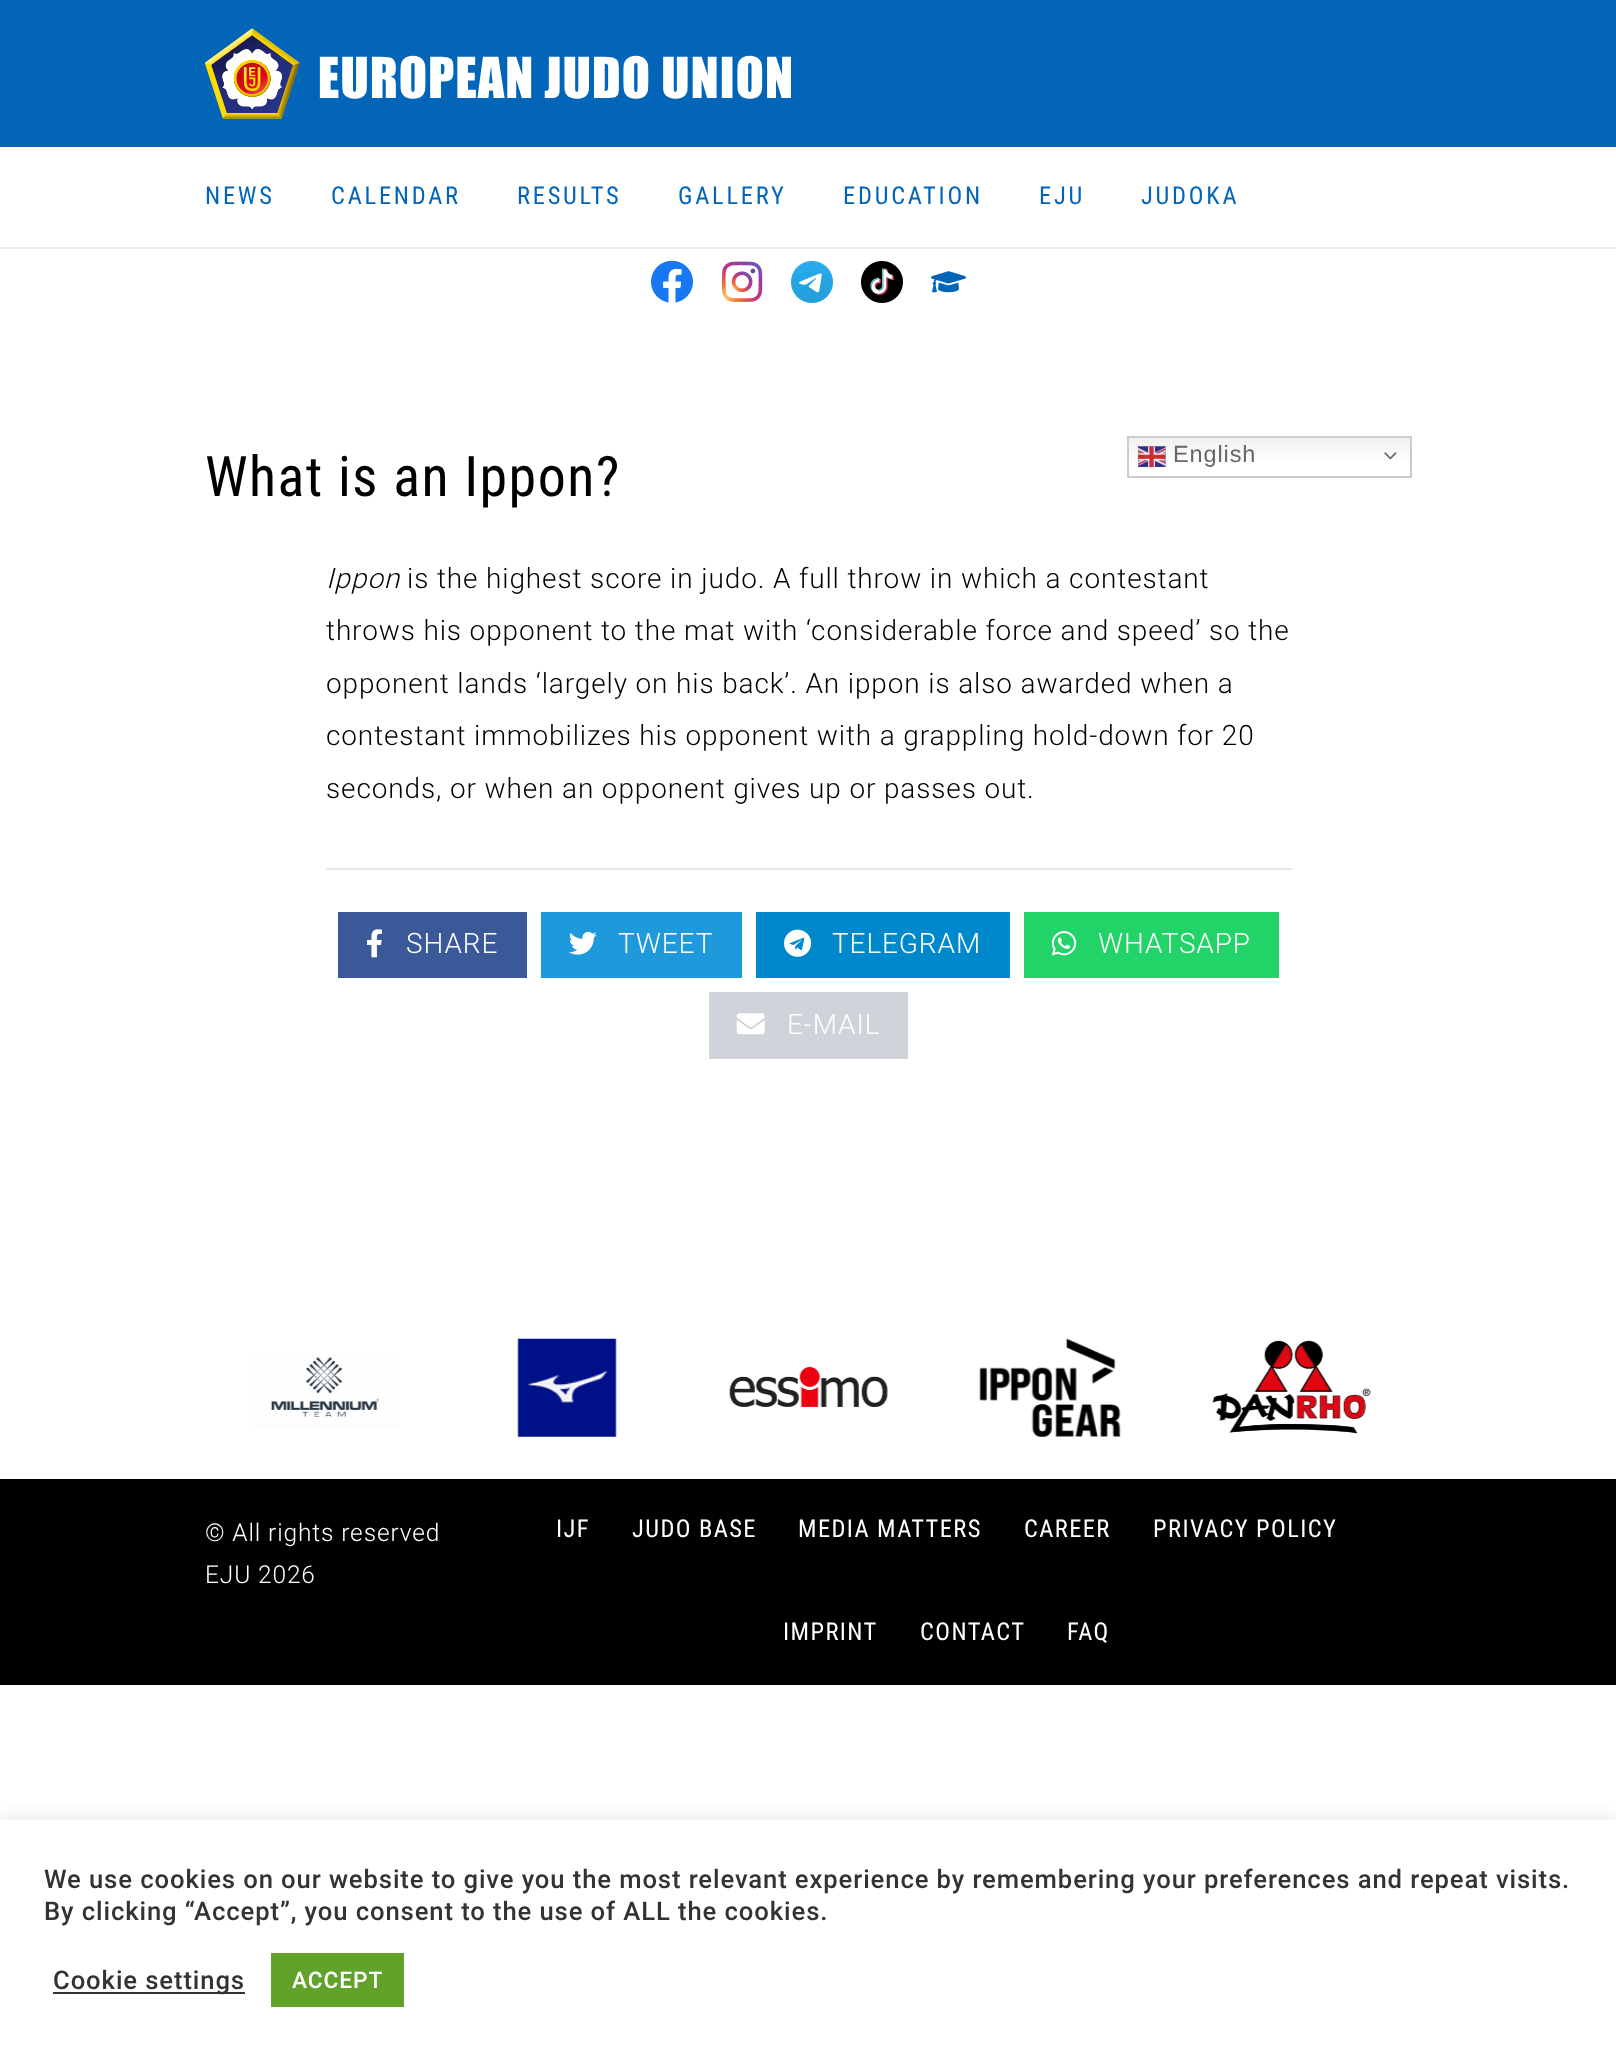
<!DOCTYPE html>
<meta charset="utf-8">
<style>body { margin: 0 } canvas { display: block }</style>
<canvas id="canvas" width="1616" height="2059"></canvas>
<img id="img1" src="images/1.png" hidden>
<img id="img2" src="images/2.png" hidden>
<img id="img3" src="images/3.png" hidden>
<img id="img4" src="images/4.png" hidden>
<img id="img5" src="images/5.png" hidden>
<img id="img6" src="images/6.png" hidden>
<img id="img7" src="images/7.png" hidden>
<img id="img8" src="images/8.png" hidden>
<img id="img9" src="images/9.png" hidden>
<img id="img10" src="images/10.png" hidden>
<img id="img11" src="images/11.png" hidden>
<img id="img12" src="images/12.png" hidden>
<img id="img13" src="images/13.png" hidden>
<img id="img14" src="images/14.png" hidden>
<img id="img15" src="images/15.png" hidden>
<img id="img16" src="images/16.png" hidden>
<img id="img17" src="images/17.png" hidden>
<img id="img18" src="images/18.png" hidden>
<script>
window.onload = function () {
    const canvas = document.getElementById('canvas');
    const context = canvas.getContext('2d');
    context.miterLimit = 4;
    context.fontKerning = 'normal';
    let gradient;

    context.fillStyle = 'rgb(255, 255, 255)';
    context.fillRect(0, 0, 1616, 2059);
    context.fillStyle = 'rgb(2, 101, 184)';
    context.fillRect(0, 0, 1616, 147);
    context.drawImage(document.getElementById('img1'), 205, 28, 586, 91);
    context.fillStyle = 'rgb(233, 236, 239)';
    context.fillRect(0, 247, 1616, 2);
    context.drawImage(document.getElementById('img2'), 651, 261, 42, 42);
    context.drawImage(document.getElementById('img3'), 721, 261, 42, 41);
    context.drawImage(document.getElementById('img4'), 791, 261, 42, 42);
    context.drawImage(document.getElementById('img5'), 861, 261, 42, 42);
    context.drawImage(document.getElementById('img6'), 931, 271, 35, 22);
    gradient = context.createLinearGradient(1270, 436, 1270, 478);
    gradient.addColorStop(0, 'rgb(239, 239, 239)');
    gradient.addColorStop(0.7, 'rgb(255, 255, 255)');
    context.fillStyle = gradient;
    context.fillRect(1129, 438, 281, 23);
    context.strokeStyle = 'rgb(204, 204, 204)';
    context.lineWidth = 2;
    context.strokeRect(1128, 437, 283, 40);
    context.drawImage(document.getElementById('img7'), 1138, 446, 28, 22);
    context.drawImage(document.getElementById('img8'), 1384, 452, 13, 8);
    context.fillStyle = 'rgb(230, 230, 230)';
    context.fillRect(326, 868, 966, 2);
    context.fillStyle = 'rgb(59, 89, 152)';
    context.fillRect(338, 912, 189, 66);
    context.drawImage(document.getElementById('img9'), 367, 929, 15, 29);
    context.fillStyle = 'rgb(30, 153, 220)';
    context.fillRect(541, 912, 201, 66);
    context.drawImage(document.getElementById('img10'), 569, 931, 28, 24);
    context.fillStyle = 'rgb(0, 136, 204)';
    context.fillRect(756, 912, 254, 66);
    context.drawImage(document.getElementById('img11'), 784, 929, 28, 28);
    context.fillStyle = 'rgb(34, 212, 103)';
    context.fillRect(1024, 912, 255, 66);
    context.drawImage(document.getElementById('img12'), 1051, 931, 26, 25);
    context.fillStyle = 'rgb(206, 212, 218)';
    context.fillRect(709, 992, 199, 67);
    context.drawImage(document.getElementById('img13'), 736, 1013, 29, 22);
    context.drawImage(document.getElementById('img14'), 251, 1356, 150, 70);
    context.drawImage(document.getElementById('img15'), 517, 1338, 100, 99);
    context.drawImage(document.getElementById('img16'), 729, 1366, 159, 41);
    context.drawImage(document.getElementById('img17'), 979, 1338, 142, 99);
    context.drawImage(document.getElementById('img18'), 1212, 1340, 159, 94);
    context.fillStyle = 'rgb(0, 0, 0)';
    context.fillRect(0, 1479, 1616, 206);
    context.save();
    context.beginPath();
    context.rect(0, 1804, 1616, 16);
    context.clip();
    context.fillStyle = 'rgba(172, 171, 171, 0.3)';
    context.filter = 'blur(9px)';
    context.beginPath();
    context.rect(0, 1818, 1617, 240);
    context.fill();
    context.filter = 'none';
    context.restore();
    context.fillStyle = 'rgb(51, 51, 51)';
    context.fillRect(53, 1992, 192, 2);
    context.fillStyle = 'rgb(97, 162, 41)';
    context.fillRect(271, 1953, 133, 54);
    context.letterSpacing = '2.75px';
    context.font = '24.5px Roboto Condensed';
    context.fillStyle = 'rgb(2, 101, 184)';
    context.fillText('NEWS', 205, 204);
    context.fillText('CALENDAR', 331, 204);
    context.fillText('RESULTS', 517, 204);
    context.fillText('GALLERY', 678, 204);
    context.fillText('EDUCATION', 843, 204);
    context.fillText('EJU', 1039, 204);
    context.fillText('JUDOKA', 1141, 204);
    context.letterSpacing = '1.4px';
    context.font = '56px Roboto Condensed';
    context.fillStyle = 'rgb(0, 0, 0)';
    context.fillText('What is an Ippon?', 205, 496);
    context.letterSpacing = '0.88px';
    context.font = '23.5px Liberation Sans';
    context.fillStyle = 'rgb(102, 102, 102)';
    context.fillText('English', 1173, 462);
    context.font = 'italic 300 28px Roboto';
    context.fillStyle = 'rgb(0, 0, 0)';
    context.fillText('Ippon', 326, 588);
    context.font = '300 28px Roboto';
    context.fillText('is the highest score in judo. A full throw in which a contestant', 407, 588);
    context.fillText('throws his opponent to the mat with ‘considerable force and speed’ so the', 326, 640);
    context.fillText('opponent lands ‘largely on his back’. An ippon is also awarded when a', 326, 693);
    context.fillText('contestant immobilizes his opponent with a grappling hold-down for 20', 326, 745);
    context.fillText('seconds, or when an opponent gives up or passes out.', 326, 798);
    context.fillStyle = 'rgb(255, 255, 255)';
    context.fillText('SHARE', 406, 953);
    context.fillText('TWEET', 618, 953);
    context.fillText('TELEGRAM', 832, 953);
    context.fillText('WHATSAPP', 1098, 953);
    context.fillText('E-MAIL', 787, 1034);
    context.font = '300 24.5px Roboto';
    context.fillText('© All rights reserved', 205, 1541);
    context.fillText('EJU 2026', 205, 1583);
    context.letterSpacing = '1.4px';
    context.font = '24.5px Roboto Condensed';
    context.fillText('IJF', 556, 1537);
    context.fillText('JUDO BASE', 632, 1537);
    context.fillText('MEDIA MATTERS', 798, 1537);
    context.fillText('CAREER', 1024, 1537);
    context.fillText('PRIVACY POLICY', 1153, 1537);
    context.fillText('IMPRINT', 783, 1640);
    context.fillText('CONTACT', 920, 1640);
    context.fillText('FAQ', 1067, 1640);
    context.letterSpacing = '0.88px';
    context.font = '500 25.67px Roboto';
    context.fillStyle = 'rgb(51, 51, 51)';
    context.fillText('We use cookies on our website to give you the most relevant experience by remembering your preferences and repeat visits.', 44, 1888);
    context.fillText('By clicking “Accept”, you consent to the use of ALL the cookies.', 44, 1920);
    context.fillText('Cookie settings', 53, 1989);
    context.font = '500 22.75px Roboto';
    context.fillStyle = 'rgb(255, 255, 255)';
    context.fillText('ACCEPT', 292, 1988);
};
</script>
